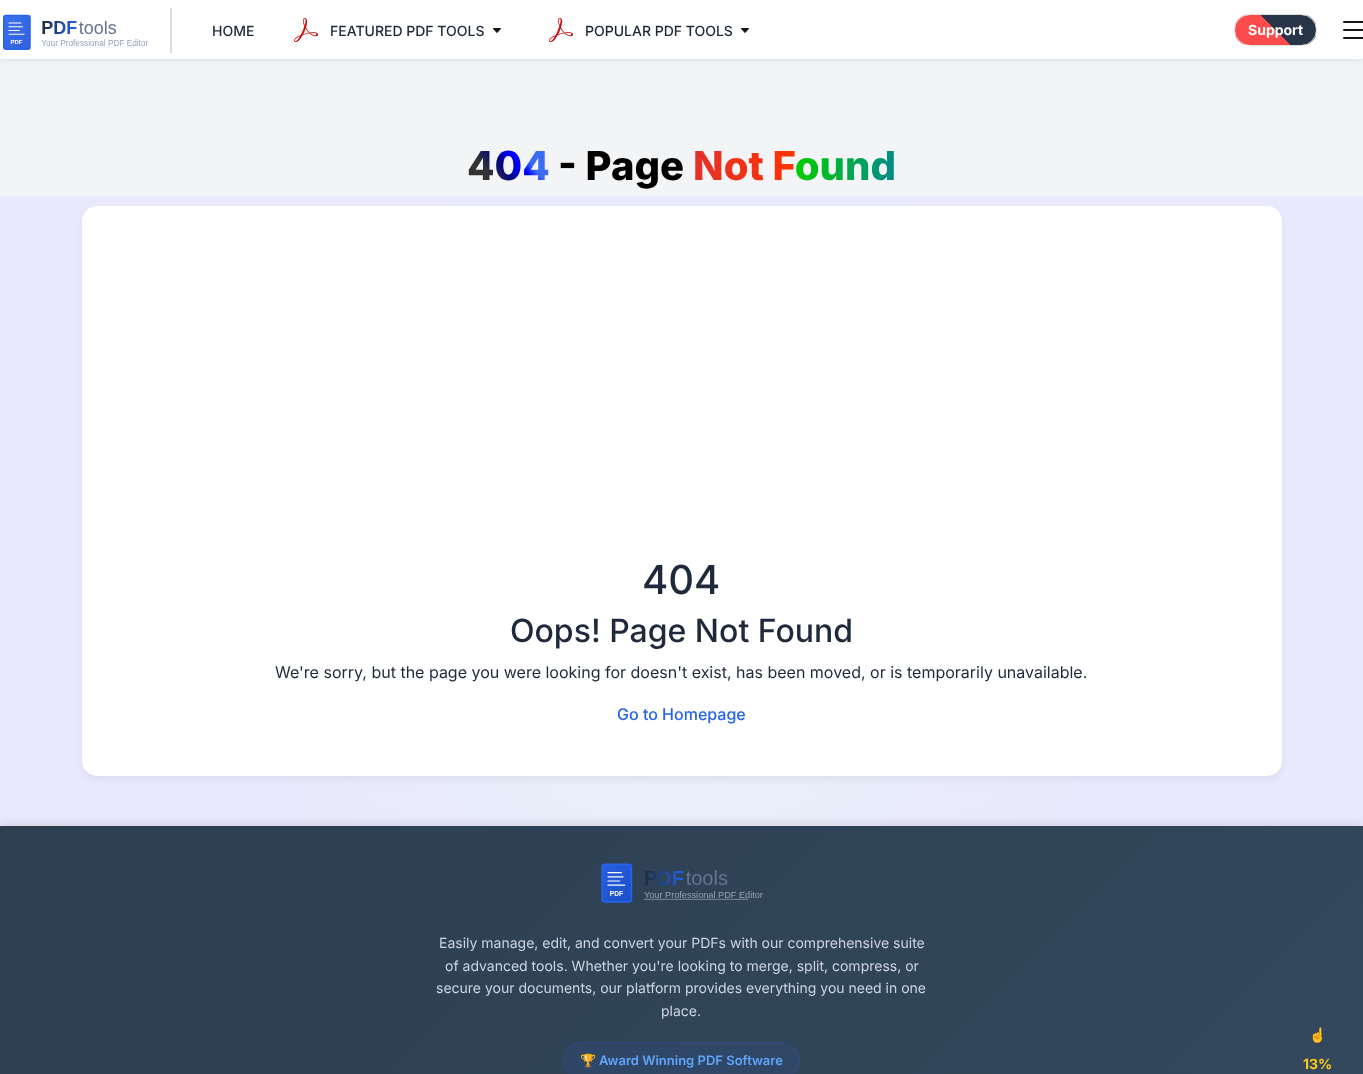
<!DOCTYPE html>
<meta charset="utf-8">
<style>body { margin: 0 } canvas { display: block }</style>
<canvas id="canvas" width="1363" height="1074"></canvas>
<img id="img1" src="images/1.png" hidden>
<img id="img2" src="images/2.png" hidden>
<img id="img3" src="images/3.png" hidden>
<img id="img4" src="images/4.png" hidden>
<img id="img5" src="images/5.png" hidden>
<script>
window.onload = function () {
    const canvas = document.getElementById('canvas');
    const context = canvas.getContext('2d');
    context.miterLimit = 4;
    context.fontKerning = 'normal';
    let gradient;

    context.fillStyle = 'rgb(255, 255, 255)';
    context.fillRect(0, 0, 1363, 1074);
    gradient = context.createRadialGradient(682, 579, 0, 682, 579, 903);
    gradient.addColorStop(0, 'rgb(234, 245, 249)');
    gradient.addColorStop(0.5, 'rgb(233, 232, 252)');
    context.fillStyle = gradient;
    context.fillRect(0, 196, 1363, 630);
    context.fillStyle = 'rgb(243, 244, 246)';
    context.fillRect(0, 60, 1363, 136);
    context.fillStyle = 'rgba(0, 0, 0, 0.05)';
    context.filter = 'blur(2px)';
    context.beginPath();
    context.rect(0, 2, 1363, 60);
    context.fill();
    context.filter = 'none';
    context.fillStyle = 'rgb(255, 255, 255)';
    context.fillRect(0, 0, 1363, 59);
    context.fillStyle = 'rgb(226, 232, 240)';
    context.fillRect(0, 59, 1363, 1);
    context.fillStyle = 'rgb(221, 221, 221)';
    context.fillRect(170, 8, 2, 45);
    context.drawImage(document.getElementById('img1'), 3, 14, 146, 36);
    context.drawImage(document.getElementById('img2'), 294, 18, 24, 24);
    context.drawImage(document.getElementById('img3'), 493, 28, 8, 5);
    context.drawImage(document.getElementById('img2'), 549, 18, 24, 24);
    context.drawImage(document.getElementById('img3'), 741, 28, 8, 5);
    context.save();
    context.beginPath();
    context.roundRect(1234, 14, 83, 32, 16);
    context.clip();
    gradient = context.createLinearGradient(1248, 58, 1303, 2.2);
    gradient.addColorStop(0.5, 'rgb(252, 75, 75)');
    gradient.addColorStop(0.5, 'rgb(40, 52, 72)');
    context.fillStyle = gradient;
    context.fillRect(1235, 15, 81, 30);
    context.restore();
    context.beginPath();
    context.roundRect(1234.5, 14.5, 82, 31, 15.5);
    context.strokeStyle = 'rgb(221, 221, 221)';
    context.stroke();
    context.drawImage(document.getElementById('img4'), 1343, 21, 20, 18);
    context.fillStyle = 'rgba(0, 0, 0, 0.05)';
    context.filter = 'blur(3px)';
    context.beginPath();
    context.roundRect(82, 210, 1200, 570, 15);
    context.fill();
    context.filter = 'none';
    context.fillStyle = 'rgb(255, 255, 255)';
    context.beginPath();
    context.roundRect(82, 206, 1200, 570, 15);
    context.fill();
    context.fillStyle = 'rgba(0, 0, 0, 0.1)';
    context.filter = 'blur(5px)';
    context.beginPath();
    context.rect(0, 824, 1363, 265);
    context.fill();
    context.filter = 'none';
    gradient = context.createLinearGradient(254, 572, 1109, 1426);
    gradient.addColorStop(0, 'rgb(44, 62, 80)');
    gradient.addColorStop(1, 'rgb(52, 73, 94)');
    context.fillStyle = gradient;
    context.fillRect(0, 826, 1363, 248);
    context.drawImage(document.getElementById('img5'), 601, 863, 162, 40);
    context.fillStyle = 'rgba(37, 99, 235, 0.1)';
    context.beginPath();
    context.roundRect(563, 1042, 237, 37, 18.5);
    context.fill();
    context.beginPath();
    context.roundRect(563.5, 1042.5, 236, 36, 18);
    context.strokeStyle = 'rgba(37, 99, 235, 0.2)';
    context.stroke();
    context.font = '500 14px Inter';
    context.fillStyle = 'rgb(30, 41, 59)';
    context.fillText('HOME', 212, 36);
    context.fillText('FEATURED PDF TOOLS', 330, 36);
    context.fillText('POPULAR PDF TOOLS', 585, 36);
    context.font = 'bold 14px Inter';
    context.fillStyle = 'rgb(255, 255, 255)';
    context.fillText('Support', 1248, 35);
    context.font = '800 40px Inter';
    gradient = context.createLinearGradient(469, 193, 547, 138);
    gradient.addColorStop(0.28, 'rgb(51, 51, 51)');
    gradient.addColorStop(0.47, 'rgb(0, 0, 139)');
    gradient.addColorStop(0.52, 'rgb(0, 0, 205)');
    gradient.addColorStop(0.62, 'rgb(0, 0, 255)');
    gradient.addColorStop(0.71, 'rgb(61, 107, 242)');
    context.fillStyle = gradient;
    context.fillText('404', 467, 180);
    context.fillStyle = 'rgb(0, 0, 0)';
    context.fillText('- Page', 558, 180);
    gradient = context.createLinearGradient(693, 166, 896, 166);
    gradient.addColorStop(0, 'rgb(228, 49, 44)');
    gradient.addColorStop(0.5, 'rgb(254, 51, 0)');
    gradient.addColorStop(0.51, 'rgb(0, 204, 0)');
    gradient.addColorStop(1, 'rgb(0, 139, 139)');
    context.fillStyle = gradient;
    context.fillText('Not Found', 693, 180);
    context.font = '500 40px Inter';
    context.fillStyle = 'rgb(30, 41, 59)';
    context.fillText('404', 642, 594);
    context.font = '500 32px Inter';
    context.fillText('Oops! Page Not Found', 510, 642);
    context.font = '16px Inter';
    context.fillText('We\'re sorry, but the page you were looking for doesn\'t exist, has been moved, or is temporarily unavailable.', 275, 678);
    context.font = '500 16px Inter';
    context.fillStyle = 'rgb(37, 99, 235)';
    context.fillText('Go to Homepage', 617, 720);
    context.font = '14px Inter';
    context.fillStyle = 'rgb(203, 213, 225)';
    context.fillText('Easily manage, edit, and convert your PDFs with our comprehensive suite', 439, 948);
    context.fillText('of advanced tools. Whether you\'re looking to merge, split, compress, or', 445, 971);
    context.fillText('secure your documents, our platform provides everything you need in one', 436, 993);
    context.fillText('place.', 661, 1016);
    context.font = 'bold 13px Noto Color Emoji';
    context.fillStyle = 'rgb(96, 165, 250)';
    context.fillText('🏆', 580, 1065);
    context.font = '600 13px Inter';
    context.fillText('Award Winning PDF Software', 599, 1065);
    context.font = 'bold 14px Noto Color Emoji';
    context.fillStyle = 'rgb(250, 204, 21)';
    context.fillText('☝', 1309, 1040);
    context.font = 'bold 14px Inter';
    context.fillText('13%', 1303, 1069);
};
</script>
